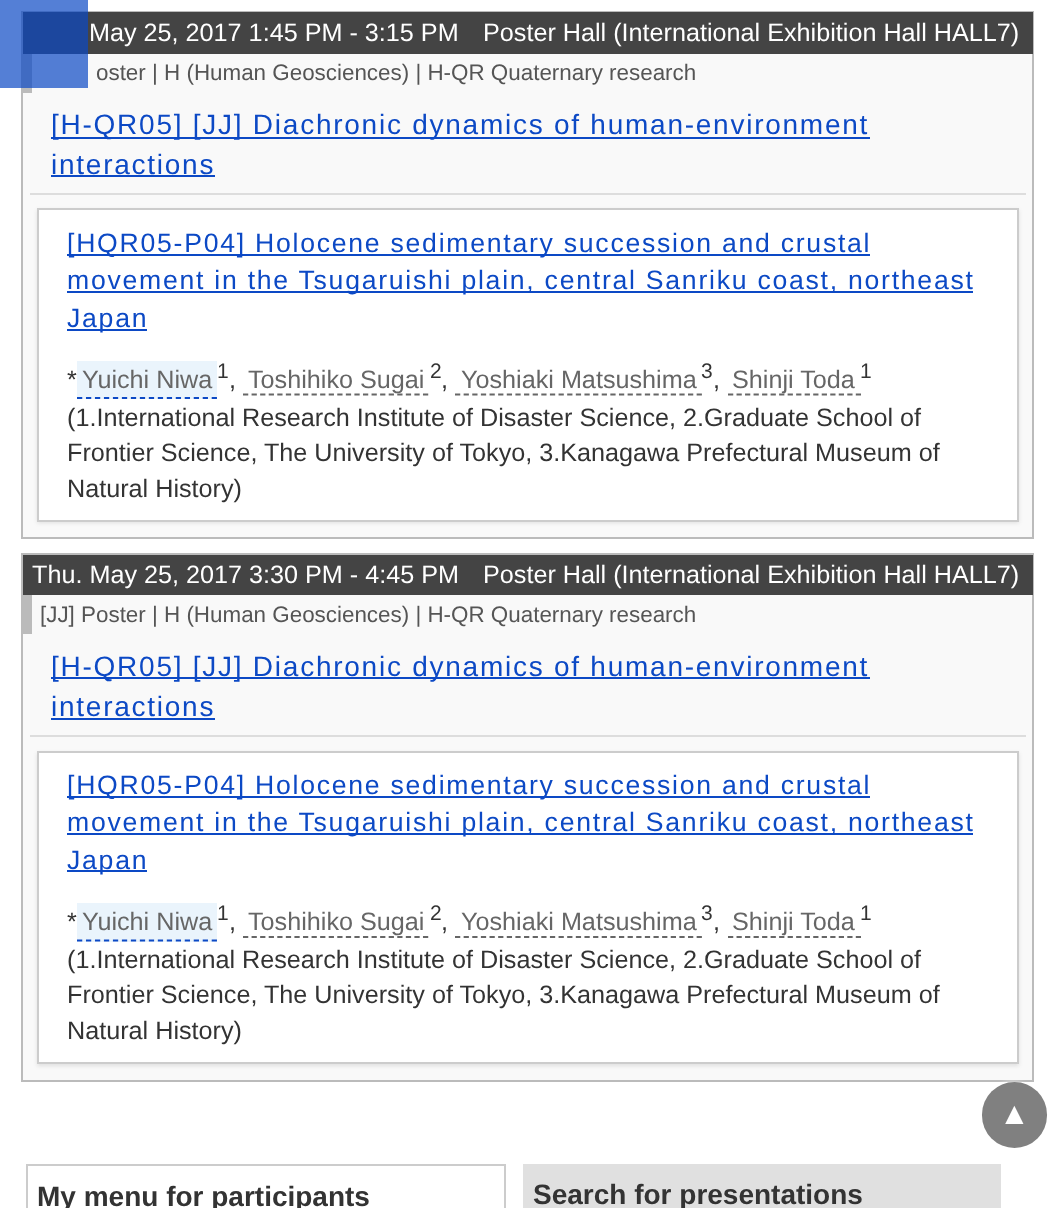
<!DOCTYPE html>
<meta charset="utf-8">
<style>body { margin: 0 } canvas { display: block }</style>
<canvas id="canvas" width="1055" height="1208"></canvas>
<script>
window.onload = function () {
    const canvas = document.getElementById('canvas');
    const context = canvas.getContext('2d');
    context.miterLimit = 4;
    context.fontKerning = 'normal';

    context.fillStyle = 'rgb(255, 255, 255)';
    context.fillRect(0, 0, 1055, 1208);
    context.fillStyle = 'rgb(249, 249, 249)';
    context.fillRect(23, 54, 1009, 483);
    context.strokeStyle = 'rgb(187, 187, 187)';
    context.lineWidth = 2;
    context.strokeRect(22, 12, 1011, 526);
    context.fillStyle = 'rgb(68, 68, 68)';
    context.fillRect(23, 12, 1010, 42);
    context.fillStyle = 'rgb(187, 187, 187)';
    context.fillRect(23, 54, 9, 39);
    context.fillStyle = 'rgba(12, 73, 197, 0.7)';
    context.fillRect(0, 0, 88, 88);
    context.fillStyle = 'rgb(221, 221, 221)';
    context.fillRect(30, 193, 996, 2);
    context.fillStyle = 'rgb(12, 73, 197)';
    context.fillRect(51, 137, 819, 2);
    context.fillRect(51, 175, 164, 2);
    context.fillStyle = 'rgba(0, 0, 0, 0.1)';
    context.filter = 'blur(2px)';
    context.beginPath();
    context.rect(37, 210, 982, 313);
    context.fill();
    context.filter = 'none';
    context.fillStyle = 'rgb(255, 255, 255)';
    context.beginPath();
    context.rect(38, 209, 980, 312);
    context.fill();
    context.strokeStyle = 'rgb(204, 204, 204)';
    context.stroke();
    context.fillStyle = 'rgb(12, 73, 197)';
    context.fillRect(67, 254, 803, 2);
    context.fillRect(67, 291, 906, 2);
    context.fillRect(67, 329, 80, 2);
    context.fillStyle = 'rgb(234, 244, 252)';
    context.fillRect(77, 361, 140, 38);
    context.beginPath();
    context.moveTo(77, 398);
    context.lineTo(217, 398);
    context.strokeStyle = 'rgb(12, 73, 197)';
    context.lineWidth = 1.8;
    context.setLineDash([5.25, 3.73]);
    context.stroke();
    context.beginPath();
    context.moveTo(243, 394.5);
    context.lineTo(429, 394.5);
    context.strokeStyle = 'rgb(102, 102, 102)';
    context.setLineDash([5.25, 3.32]);
    context.stroke();
    context.beginPath();
    context.moveTo(455, 394.5);
    context.lineTo(702, 394.5);
    context.setLineDash([5.25, 3.38]);
    context.stroke();
    context.beginPath();
    context.moveTo(728, 394.5);
    context.lineTo(861, 394.5);
    context.setLineDash([5.25, 3.27]);
    context.stroke();
    context.fillStyle = 'rgb(249, 249, 249)';
    context.fillRect(23, 595, 1009, 485);
    context.strokeStyle = 'rgb(187, 187, 187)';
    context.lineWidth = 2;
    context.setLineDash([]);
    context.strokeRect(22, 554, 1011, 527);
    context.fillStyle = 'rgb(68, 68, 68)';
    context.fillRect(23, 555, 1010, 40);
    context.fillStyle = 'rgb(187, 187, 187)';
    context.fillRect(23, 595, 9, 39);
    context.fillStyle = 'rgb(221, 221, 221)';
    context.fillRect(30, 735, 996, 2);
    context.fillStyle = 'rgb(12, 73, 197)';
    context.fillRect(51, 677, 819, 2);
    context.fillRect(51, 718, 164, 2);
    context.fillStyle = 'rgba(0, 0, 0, 0.1)';
    context.filter = 'blur(2px)';
    context.beginPath();
    context.rect(37, 753, 982, 313);
    context.fill();
    context.filter = 'none';
    context.fillStyle = 'rgb(255, 255, 255)';
    context.beginPath();
    context.rect(38, 752, 980, 311);
    context.fill();
    context.strokeStyle = 'rgb(204, 204, 204)';
    context.stroke();
    context.fillStyle = 'rgb(12, 73, 197)';
    context.fillRect(67, 796, 803, 2);
    context.fillRect(67, 833, 906, 2);
    context.fillRect(67, 870, 80, 2);
    context.fillStyle = 'rgb(234, 244, 252)';
    context.fillRect(77, 903, 140, 39);
    context.beginPath();
    context.moveTo(77, 940.5);
    context.lineTo(217, 940.5);
    context.strokeStyle = 'rgb(12, 73, 197)';
    context.lineWidth = 1.8;
    context.setLineDash([5.25, 3.73]);
    context.stroke();
    context.beginPath();
    context.moveTo(243, 937);
    context.lineTo(429, 937);
    context.strokeStyle = 'rgb(102, 102, 102)';
    context.setLineDash([5.25, 3.32]);
    context.stroke();
    context.beginPath();
    context.moveTo(455, 937);
    context.lineTo(702, 937);
    context.setLineDash([5.25, 3.38]);
    context.stroke();
    context.beginPath();
    context.moveTo(728, 937);
    context.lineTo(861, 937);
    context.setLineDash([5.25, 3.27]);
    context.stroke();
    context.strokeStyle = 'rgb(204, 204, 204)';
    context.lineWidth = 2;
    context.setLineDash([]);
    context.strokeRect(27, 1165, 478, 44);
    context.fillStyle = 'rgb(224, 224, 224)';
    context.fillRect(523, 1164, 478, 44);
    context.fillStyle = 'rgba(255, 255, 255, 0.3)';
    context.filter = 'blur(1px)';
    context.beginPath();
    context.roundRect(980, 1080, 65, 66, 32.5);
    context.fill();
    context.filter = 'none';
    context.fillStyle = 'rgb(128, 128, 128)';
    context.beginPath();
    context.roundRect(982, 1082, 65, 66, 32.5);
    context.fill();
    context.font = '25.2px Liberation Sans';
    context.fillStyle = 'rgb(255, 255, 255)';
    context.fillText('May 25, 2017 1:45 PM - 3:15 PM', 89, 41);
    context.fillText('Poster Hall (International Exhibition Hall HALL7)', 483, 41);
    context.font = '22.4px Liberation Sans';
    context.fillStyle = 'rgb(85, 85, 85)';
    context.fillText('oster | H (Human Geosciences) | H-QR Quaternary research', 96, 80);
    context.letterSpacing = '1.75px';
    context.font = '28px Liberation Sans';
    context.fillStyle = 'rgb(12, 73, 197)';
    context.fillText('[H-QR05] [JJ] Diachronic dynamics of human-environment', 51, 134);
    context.fillText('interactions', 51, 174);
    context.font = '26.6px Liberation Sans';
    context.fillText('[HQR05-P04] Holocene sedimentary succession and crustal', 67, 252);
    context.fillText('movement in the Tsugaruishi plain, central Sanriku coast, northeast', 67, 289);
    context.fillText('Japan', 67, 327);
    context.letterSpacing = '0px';
    context.font = '25.2px Liberation Sans';
    context.fillStyle = 'rgb(51, 51, 51)';
    context.fillText('*', 67, 388);
    context.fillStyle = 'rgb(102, 102, 102)';
    context.fillText('Yuichi Niwa', 82, 388);
    context.font = '21px Liberation Sans';
    context.fillStyle = 'rgb(51, 51, 51)';
    context.fillText('1', 217, 378);
    context.font = '25.2px Liberation Sans';
    context.fillStyle = 'rgb(102, 102, 102)';
    context.fillText('Toshihiko Sugai', 248, 388);
    context.font = '21px Liberation Sans';
    context.fillStyle = 'rgb(51, 51, 51)';
    context.fillText('2', 430, 378);
    context.font = '25.2px Liberation Sans';
    context.fillStyle = 'rgb(102, 102, 102)';
    context.fillText('Yoshiaki Matsushima', 461, 388);
    context.font = '21px Liberation Sans';
    context.fillStyle = 'rgb(51, 51, 51)';
    context.fillText('3', 701, 378);
    context.font = '25.2px Liberation Sans';
    context.fillStyle = 'rgb(102, 102, 102)';
    context.fillText('Shinji Toda', 732, 388);
    context.font = '21px Liberation Sans';
    context.fillStyle = 'rgb(51, 51, 51)';
    context.fillText('1', 860, 378);
    context.font = '25.2px Liberation Sans';
    context.fillText(',', 229, 388);
    context.fillText(',', 441, 388);
    context.fillText(',', 713, 388);
    context.fillText('(1.International Research Institute of Disaster Science, 2.Graduate School of', 67, 426);
    context.fillText('Frontier Science, The University of Tokyo, 3.Kanagawa Prefectural Museum of', 67, 461);
    context.fillText('Natural History)', 67, 497);
    context.fillStyle = 'rgb(255, 255, 255)';
    context.fillText('Thu. May 25, 2017 3:30 PM - 4:45 PM', 32, 583);
    context.fillText('Poster Hall (International Exhibition Hall HALL7)', 483, 583);
    context.font = '22.4px Liberation Sans';
    context.fillStyle = 'rgb(85, 85, 85)';
    context.fillText('[JJ] Poster | H (Human Geosciences) | H-QR Quaternary research', 40, 622);
    context.letterSpacing = '1.75px';
    context.font = '28px Liberation Sans';
    context.fillStyle = 'rgb(12, 73, 197)';
    context.fillText('[H-QR05] [JJ] Diachronic dynamics of human-environment', 51, 676);
    context.fillText('interactions', 51, 716);
    context.font = '26.6px Liberation Sans';
    context.fillText('[HQR05-P04] Holocene sedimentary succession and crustal', 67, 794);
    context.fillText('movement in the Tsugaruishi plain, central Sanriku coast, northeast', 67, 831);
    context.fillText('Japan', 67, 869);
    context.letterSpacing = '0px';
    context.font = '25.2px Liberation Sans';
    context.fillStyle = 'rgb(51, 51, 51)';
    context.fillText('*', 67, 930);
    context.fillStyle = 'rgb(102, 102, 102)';
    context.fillText('Yuichi Niwa', 82, 930);
    context.font = '21px Liberation Sans';
    context.fillStyle = 'rgb(51, 51, 51)';
    context.fillText('1', 217, 920);
    context.font = '25.2px Liberation Sans';
    context.fillStyle = 'rgb(102, 102, 102)';
    context.fillText('Toshihiko Sugai', 248, 930);
    context.font = '21px Liberation Sans';
    context.fillStyle = 'rgb(51, 51, 51)';
    context.fillText('2', 430, 920);
    context.font = '25.2px Liberation Sans';
    context.fillStyle = 'rgb(102, 102, 102)';
    context.fillText('Yoshiaki Matsushima', 461, 930);
    context.font = '21px Liberation Sans';
    context.fillStyle = 'rgb(51, 51, 51)';
    context.fillText('3', 701, 920);
    context.font = '25.2px Liberation Sans';
    context.fillStyle = 'rgb(102, 102, 102)';
    context.fillText('Shinji Toda', 732, 930);
    context.font = '21px Liberation Sans';
    context.fillStyle = 'rgb(51, 51, 51)';
    context.fillText('1', 860, 920);
    context.font = '25.2px Liberation Sans';
    context.fillText(',', 229, 930);
    context.fillText(',', 441, 930);
    context.fillText(',', 713, 930);
    context.fillText('(1.International Research Institute of Disaster Science, 2.Graduate School of', 67, 968);
    context.fillText('Frontier Science, The University of Tokyo, 3.Kanagawa Prefectural Museum of', 67, 1003);
    context.fillText('Natural History)', 67, 1039);
    context.font = 'bold 28px Liberation Sans';
    context.fillText('My menu for participants', 37, 1206);
    context.fillText('Search for presentations', 533, 1204);
    context.font = '31px Liberation Sans';
    context.fillStyle = 'rgb(255, 255, 255)';
    context.fillText('▲', 999, 1124);
};
</script>
